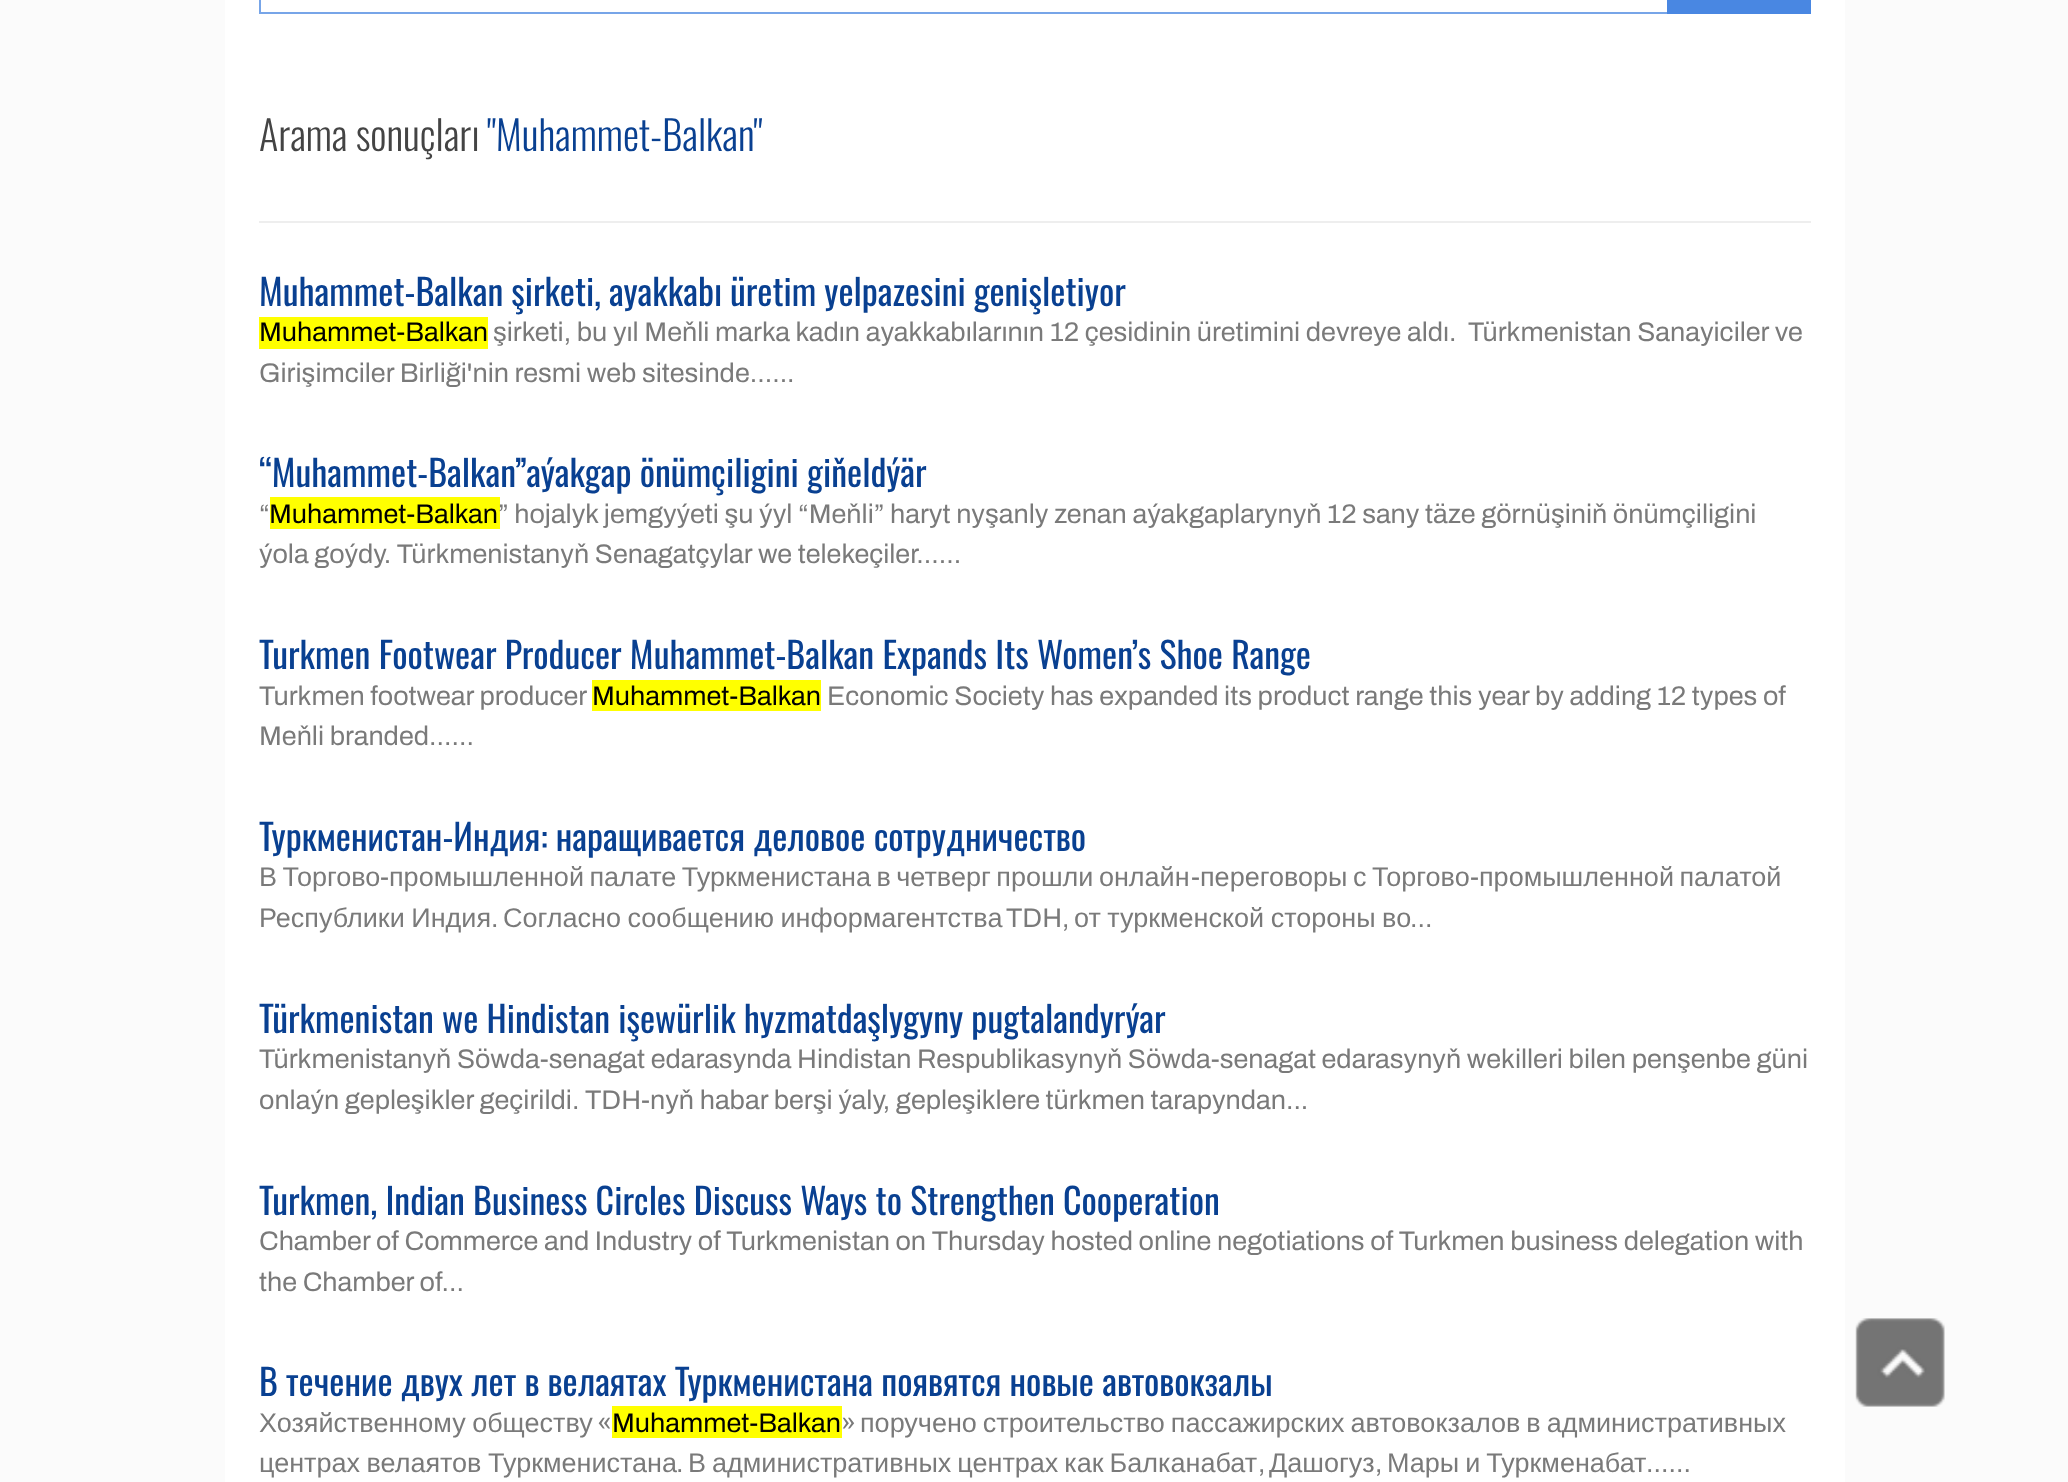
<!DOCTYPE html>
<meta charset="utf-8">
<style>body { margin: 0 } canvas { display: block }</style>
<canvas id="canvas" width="2068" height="1482"></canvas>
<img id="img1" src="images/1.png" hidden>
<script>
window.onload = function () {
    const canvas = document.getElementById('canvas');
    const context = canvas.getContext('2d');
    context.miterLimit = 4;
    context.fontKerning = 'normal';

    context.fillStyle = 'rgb(251, 251, 251)';
    context.fillRect(0, 0, 2068, 1482);
    context.fillStyle = 'rgb(255, 255, 255)';
    context.fillRect(225, 0, 1620, 1482);
    context.strokeStyle = 'rgb(119, 165, 232)';
    context.lineWidth = 2;
    context.strokeRect(260, -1, 1550, 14);
    context.fillStyle = 'rgb(73, 135, 226)';
    context.fillRect(1667, 0, 144, 14);
    context.fillStyle = 'rgb(238, 238, 238)';
    context.fillRect(259, 221, 1552, 2);
    context.fillStyle = 'rgb(255, 255, 0)';
    context.fillRect(259, 317, 229, 32);
    context.fillRect(270, 497, 230, 32);
    context.fillRect(592, 680, 229, 31);
    context.fillRect(612, 1406, 230, 32);
    context.drawImage(document.getElementById('img1'), 1855, 1318, 90, 89);
    context.font = '300 40.5px Oswald';
    context.fillStyle = 'rgb(68, 68, 68)';
    context.fillText('Arama sonuçları', 259, 151);
    context.fillStyle = 'rgb(9, 64, 145)';
    context.fillText('"Muhammet-Balkan"', 487, 151);
    context.wordSpacing = '-0.25px';
    context.font = '36px Oswald';
    context.fillText('Muhammet-Balkan şirketi, ayakkabı üretim yelpazesini genişletiyor', 259, 306);
    context.wordSpacing = '0px';
    context.font = '27px Archivo';
    context.fillStyle = 'rgb(0, 0, 0)';
    context.fillText('Muhammet-Balkan', 259, 341);
    context.fillStyle = 'rgb(122, 122, 122)';
    context.fillText('şirketi, bu yıl Meňli marka kadın ayakkabılarının 12 çesidinin üretimini devreye aldı.', 493, 341);
    context.fillText('Türkmenistan Sanayiciler ve', 1468, 341);
    context.fillText('Girişimciler Birliği\'nin resmi web sitesinde......', 259, 382);
    context.font = '36px Oswald';
    context.fillStyle = 'rgb(9, 64, 145)';
    context.fillText('“Muhammet-Balkan”aýakgap önümçiligini giňeldýär', 259, 487);
    context.font = '27px Archivo';
    context.fillStyle = 'rgb(122, 122, 122)';
    context.fillText('“', 259, 523);
    context.fillStyle = 'rgb(0, 0, 0)';
    context.fillText('Muhammet-Balkan', 269, 523);
    context.fillStyle = 'rgb(122, 122, 122)';
    context.fillText('” hojalyk jemgyýeti şu ýyl “Meňli” haryt nyşanly zenan aýakgaplarynyň 12 sany täze görnüşiniň önümçiligini', 498, 523);
    context.fillText('ýola goýdy. Türkmenistanyň Senagatçylar we telekeçiler......', 259, 563);
    context.font = '36px Oswald';
    context.fillStyle = 'rgb(9, 64, 145)';
    context.fillText('Turkmen Footwear Producer Muhammet-Balkan Expands Its Women’s Shoe Range', 259, 669);
    context.font = '27px Archivo';
    context.fillStyle = 'rgb(122, 122, 122)';
    context.fillText('Turkmen footwear producer', 259, 705);
    context.fillStyle = 'rgb(0, 0, 0)';
    context.fillText('Muhammet-Balkan', 592, 705);
    context.fillStyle = 'rgb(122, 122, 122)';
    context.fillText('Economic Society has expanded its product range this year by adding 12 types of', 827, 705);
    context.fillText('Meňli branded......', 259, 745);
    context.font = '36px Oswald';
    context.fillStyle = 'rgb(9, 64, 145)';
    context.fillText('Туркменистан-Индия: наращивается деловое сотрудничество', 259, 851);
    context.wordSpacing = '-2px';
    context.font = '27px Liberation Sans';
    context.fillStyle = 'rgb(122, 122, 122)';
    context.fillText('В Торгово', 259, 886);
    context.wordSpacing = '0px';
    context.font = '27px Archivo';
    context.fillText('-', 380, 886);
    context.wordSpacing = '-2px';
    context.font = '27px Liberation Sans';
    context.fillText('промышленной палате Туркменистана в четверг прошли онлайн', 389, 886);
    context.wordSpacing = '0px';
    context.font = '27px Archivo';
    context.fillText('-', 1191, 886);
    context.wordSpacing = '-2px';
    context.font = '27px Liberation Sans';
    context.fillText('переговоры с Торгово', 1200, 886);
    context.wordSpacing = '0px';
    context.font = '27px Archivo';
    context.fillText('-', 1470, 886);
    context.wordSpacing = '-2px';
    context.font = '27px Liberation Sans';
    context.fillText('промышленной палатой', 1479, 886);
    context.wordSpacing = '-1px';
    context.fillText('Республики Индия', 259, 927);
    context.wordSpacing = '0px';
    context.font = '27px Archivo';
    context.fillText('.', 491, 927);
    context.wordSpacing = '-1px';
    context.font = '27px Liberation Sans';
    context.fillText('Согласно сообщению информагентства', 503, 927);
    context.wordSpacing = '0px';
    context.font = '27px Archivo';
    context.fillText('TDH,', 1006, 927);
    context.wordSpacing = '-1px';
    context.font = '27px Liberation Sans';
    context.fillText('от туркменской стороны во', 1074, 927);
    context.wordSpacing = '0px';
    context.font = '27px Archivo';
    context.fillText('...', 1410, 927);
    context.font = '36px Oswald';
    context.fillStyle = 'rgb(9, 64, 145)';
    context.fillText('Türkmenistan we Hindistan işewürlik hyzmatdaşlygyny pugtalandyrýar', 259, 1033);
    context.font = '27px Archivo';
    context.fillStyle = 'rgb(122, 122, 122)';
    context.fillText('Türkmenistanyň Söwda-senagat edarasynda Hindistan Respublikasynyň Söwda-senagat edarasynyň wekilleri bilen penşenbe güni', 259, 1068);
    context.fillText('onlaýn gepleşikler geçirildi. TDH-nyň habar berşi ýaly, gepleşiklere türkmen tarapyndan...', 259, 1109);
    context.font = '36px Oswald';
    context.fillStyle = 'rgb(9, 64, 145)';
    context.fillText('Turkmen, Indian Business Circles Discuss Ways to Strengthen Cooperation', 259, 1215);
    context.font = '27px Archivo';
    context.fillStyle = 'rgb(122, 122, 122)';
    context.fillText('Chamber of Commerce and Industry of Turkmenistan on Thursday hosted online negotiations of Turkmen business delegation with', 259, 1250);
    context.fillText('the Chamber of...', 259, 1291);
    context.font = '36px Oswald';
    context.fillStyle = 'rgb(9, 64, 145)';
    context.fillText('В течение двух лет в велаятах Туркменистана появятся новые автовокзалы', 259, 1396);
    context.wordSpacing = '-1px';
    context.font = '27px Liberation Sans';
    context.fillStyle = 'rgb(122, 122, 122)';
    context.fillText('Хозяйственному обществу', 259, 1432);
    context.wordSpacing = '0px';
    context.font = '27px Archivo';
    context.fillText('«', 597, 1432);
    context.fillStyle = 'rgb(0, 0, 0)';
    context.fillText('Muhammet-Balkan', 612, 1432);
    context.fillStyle = 'rgb(122, 122, 122)';
    context.fillText('»', 841, 1432);
    context.wordSpacing = '-1.5px';
    context.font = '27px Liberation Sans';
    context.fillText('поручено строительство пассажирских автовокзалов в административных', 860, 1432);
    context.wordSpacing = '-1px';
    context.fillText('центрах велаятов Туркменистана', 259, 1472);
    context.wordSpacing = '0px';
    context.font = '27px Archivo';
    context.fillText('.', 676, 1472);
    context.wordSpacing = '-1.5px';
    context.font = '27px Liberation Sans';
    context.fillText('В административных центрах как Балканабат', 688, 1472);
    context.wordSpacing = '0px';
    context.font = '27px Archivo';
    context.fillText(',', 1258, 1472);
    context.font = '27px Liberation Sans';
    context.fillText('Дашогуз', 1269, 1472);
    context.font = '27px Archivo';
    context.fillText(',', 1375, 1472);
    context.wordSpacing = '-1.5px';
    context.font = '27px Liberation Sans';
    context.fillText('Мары и Туркменабат', 1387, 1472);
    context.wordSpacing = '0px';
    context.font = '27px Archivo';
    context.fillText('......', 1646, 1472);
};
</script>
